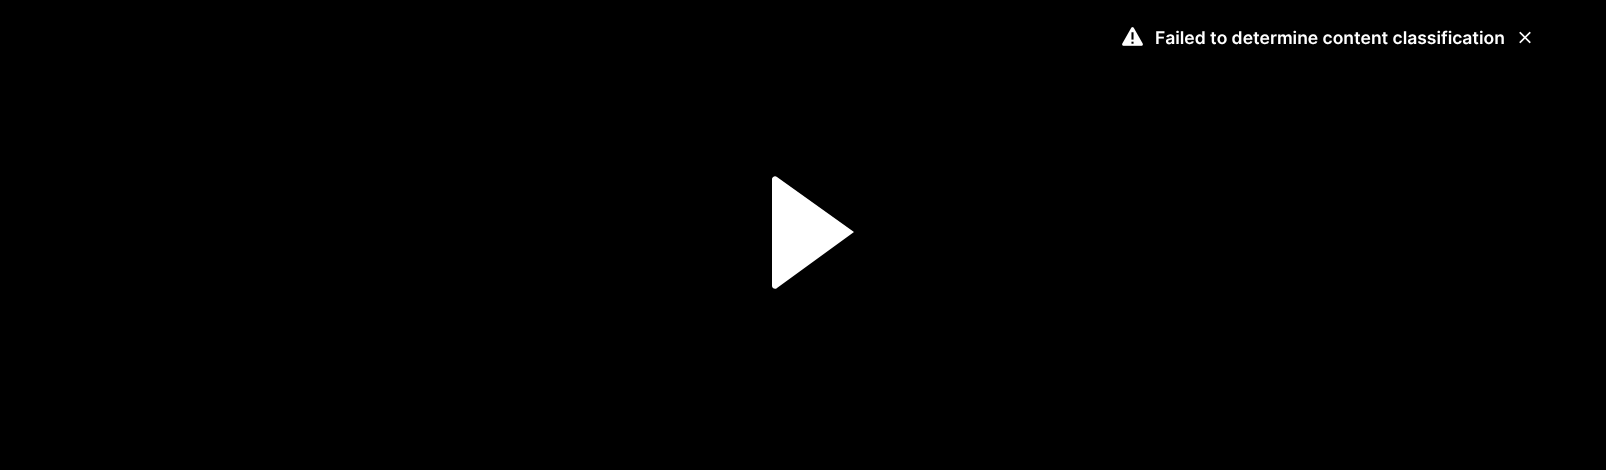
<!DOCTYPE html>
<meta charset="utf-8">
<style>body { margin: 0 } canvas { display: block }</style>
<canvas id="canvas" width="1606" height="470"></canvas>
<img id="img1" src="images/1.png" hidden>
<img id="img2" src="images/2.png" hidden>
<script>
window.onload = function () {
    const canvas = document.getElementById('canvas');
    const context = canvas.getContext('2d');
    context.miterLimit = 4;
    context.fontKerning = 'normal';

    context.fillStyle = 'rgb(0, 0, 0)';
    context.fillRect(0, 0, 1606, 470);
    context.drawImage(document.getElementById('img1'), 1122, 27, 21, 19);
    context.drawImage(document.getElementById('img2'), 1519, 31, 12, 13);
    context.fillStyle = 'rgb(255, 255, 255)';
    context.beginPath();
    context.moveTo(772, 286);
    context.lineTo(772, 179);
    context.bezierCurveTo(772, 177, 775, 175, 777, 177);
    context.lineTo(854, 232);
    context.lineTo(777, 288);
    context.bezierCurveTo(775, 290, 772, 288, 772, 286);
    context.closePath();
    context.fill();
    context.font = '600 17.5px Inter';
    context.fillText('Failed to determine content classification', 1155, 44);
};
</script>
